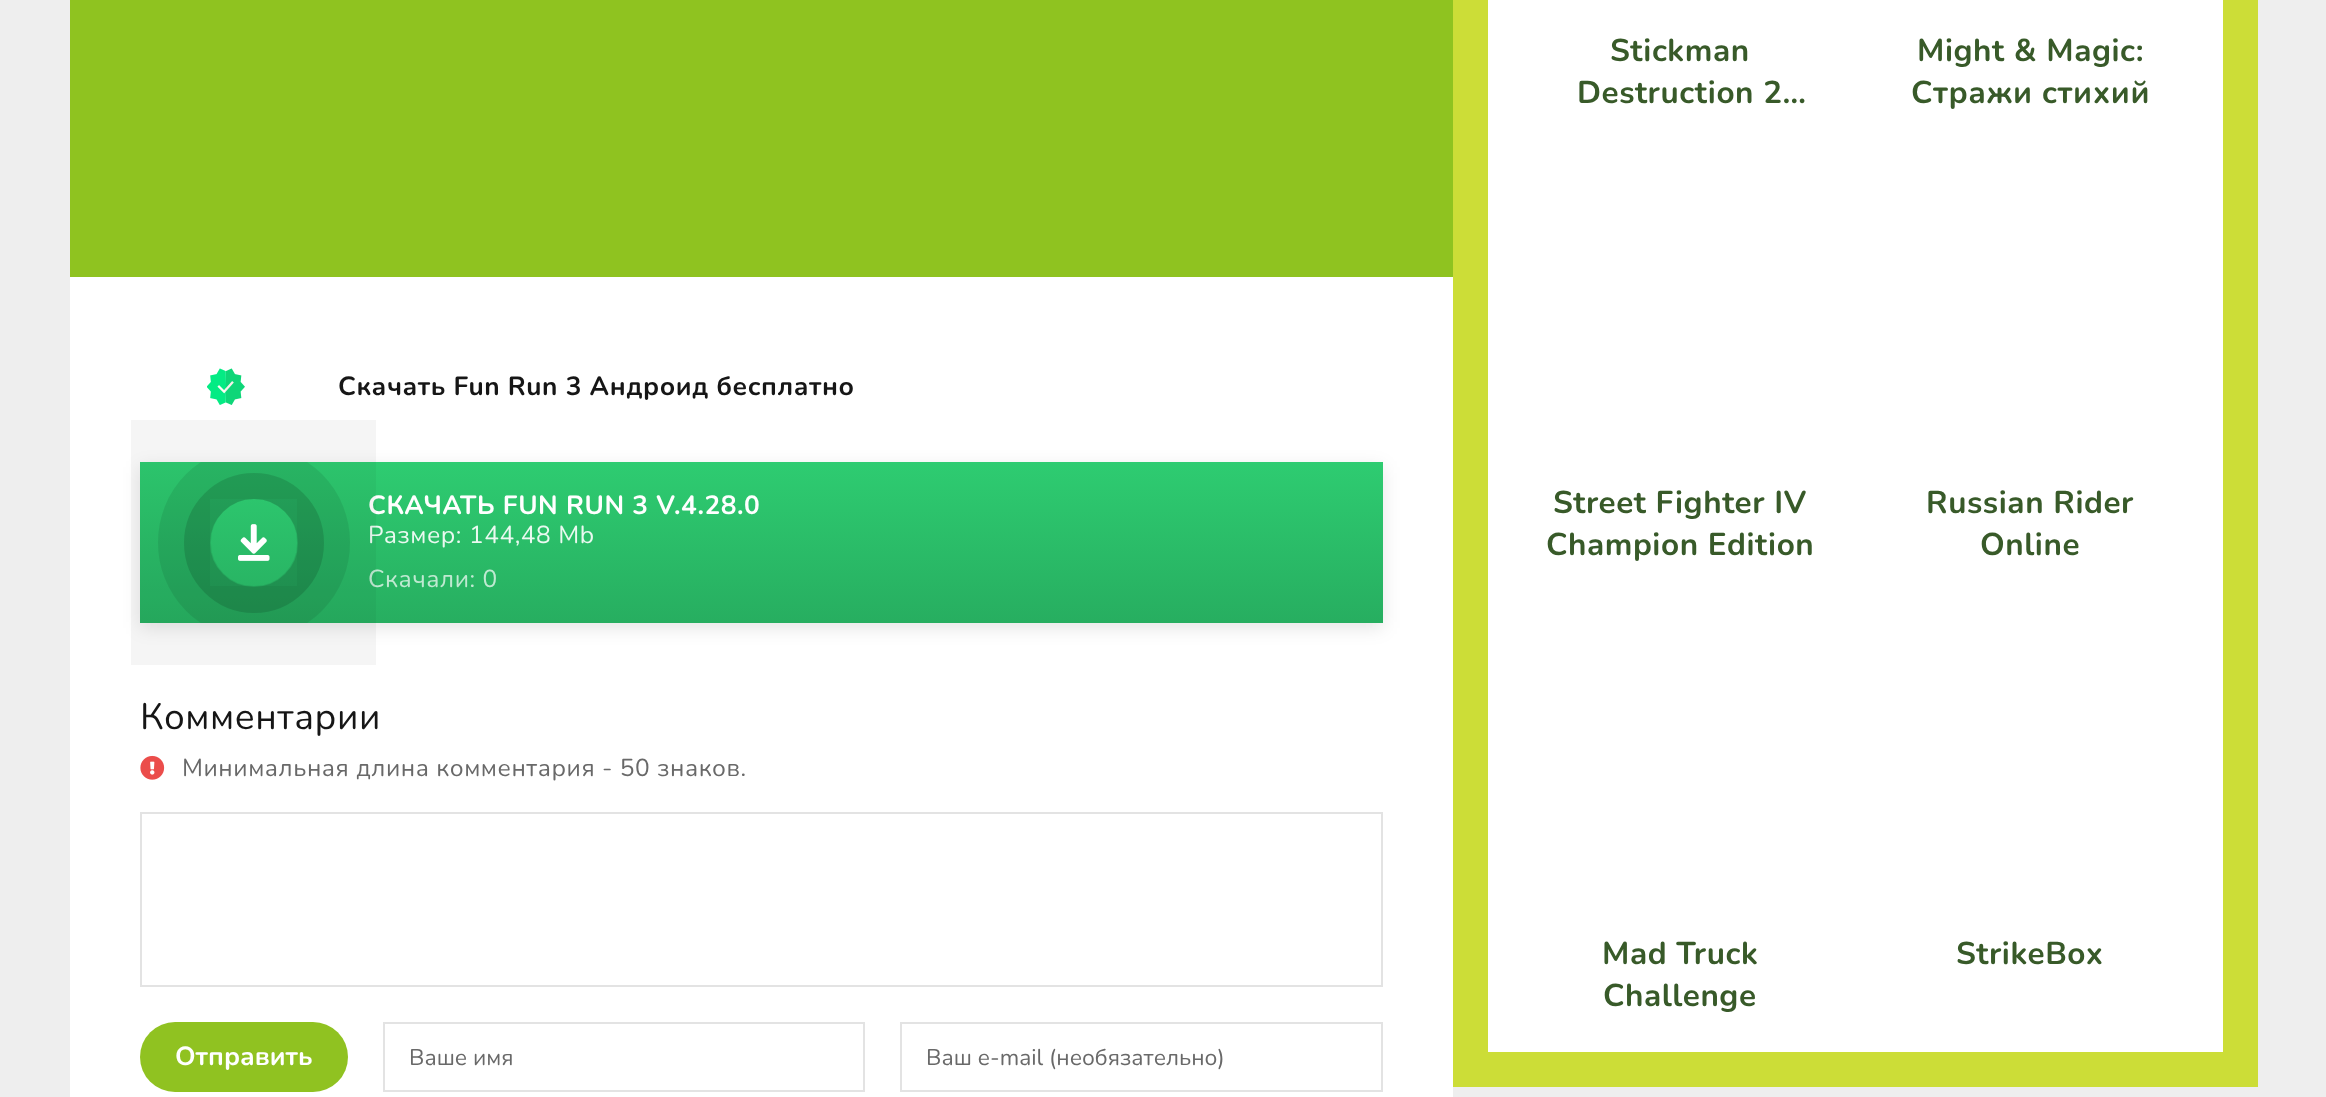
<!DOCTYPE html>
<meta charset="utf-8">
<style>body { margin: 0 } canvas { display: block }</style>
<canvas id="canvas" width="2326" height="1097"></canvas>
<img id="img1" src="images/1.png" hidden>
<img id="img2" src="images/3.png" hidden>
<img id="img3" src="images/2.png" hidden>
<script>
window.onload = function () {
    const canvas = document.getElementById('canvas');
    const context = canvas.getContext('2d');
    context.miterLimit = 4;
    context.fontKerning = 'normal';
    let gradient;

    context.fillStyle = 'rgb(238, 238, 238)';
    context.fillRect(0, 0, 2326, 1097);
    context.fillStyle = 'rgb(255, 255, 255)';
    context.fillRect(70, 277, 1383, 820);
    context.fillStyle = 'rgb(143, 195, 32)';
    context.fillRect(70, 0, 1383, 277);
    context.drawImage(document.getElementById('img1'), 207, 368, 38, 37);
    context.fillStyle = 'rgba(0, 0, 0, 0.1)';
    context.filter = 'blur(9px)';
    context.beginPath();
    context.rect(140, 467, 1243, 161);
    context.fill();
    context.filter = 'none';
    gradient = context.createLinearGradient(761, 623, 761, 462);
    gradient.addColorStop(0, 'rgb(39, 174, 96)');
    gradient.addColorStop(1, 'rgb(46, 204, 113)');
    context.fillStyle = gradient;
    context.fillRect(140, 462, 1243, 161);
    context.drawImage(document.getElementById('img2'), 140, 755, 25, 25);
    context.strokeStyle = 'rgb(227, 227, 227)';
    context.lineWidth = 2;
    context.strokeRect(141, 813, 1241, 173);
    context.fillStyle = 'rgb(144, 194, 33)';
    context.beginPath();
    context.roundRect(140, 1022, 208, 70, 35);
    context.fill();
    context.strokeRect(384, 1023, 480, 68);
    context.strokeRect(901, 1023, 481, 68);
    context.fillStyle = 'rgb(204, 221, 55)';
    context.fillRect(1453, 0, 805, 1087);
    context.fillStyle = 'rgb(255, 255, 255)';
    context.fillRect(1488, 0, 735, 1052);
    context.letterSpacing = '0.55px';
    context.font = 'bold 26.25px Nunito';
    context.fillStyle = 'rgb(22, 22, 22)';
    context.fillText('Скачать Fun Run 3 Андроид бесплатно', 338, 395);
    context.fillStyle = 'rgb(255, 255, 255)';
    context.fillText('СКАЧАТЬ FUN RUN 3 V.4.28.0', 368, 514);
    context.font = '24.5px Nunito';
    context.fillStyle = 'rgb(234, 249, 240)';
    context.fillText('Размер: 144,48 Mb', 368, 543);
    context.fillStyle = 'rgb(191, 233, 209)';
    context.fillText('Скачали: 0', 368, 587);
    context.strokeStyle = 'rgba(0, 0, 0, 0.04)';
    context.lineWidth = 79;
    context.strokeRect(170.5, 459.5, 166, 166);
    context.save();
    context.beginPath();
    context.rect(140, 462, 1243, 161);
    context.clip();
    context.beginPath();
    context.roundRect(184.5, 472.5, 139, 140, 69.5);
    context.strokeStyle = 'rgba(0, 0, 0, 0.08)';
    context.lineWidth = 53;
    context.stroke();
    context.restore();
    context.beginPath();
    context.arc(254, 543, 57, 0, 2 * Math.PI);
    context.strokeStyle = 'rgba(0, 0, 0, 0.13)';
    context.lineWidth = 26;
    context.stroke();
    context.drawImage(document.getElementById('img3'), 238, 524, 32, 37);
    context.font = '36.75px Nunito';
    context.fillStyle = 'rgb(22, 22, 22)';
    context.fillText('Комментарии', 140, 729);
    context.font = '24.5px Nunito';
    context.fillStyle = 'rgb(105, 105, 105)';
    context.fillText('Минимальная длина комментария - 50 знаков.', 182, 776);
    context.letterSpacing = '0px';
    context.font = 'bold 26.25px Nunito';
    context.fillStyle = 'rgb(255, 255, 255)';
    context.fillText('Отправить', 175, 1065);
    context.font = '22.75px Nunito';
    context.fillStyle = 'rgb(105, 105, 105)';
    context.fillText('Ваше имя', 409, 1065);
    context.fillText('Ваш e-mail (необязательно)', 926, 1065);
    context.letterSpacing = '0.55px';
    context.font = 'bold 31.5px Nunito';
    context.fillStyle = 'rgb(56, 90, 41)';
    context.fillText('Stickman', 1610, 61);
    context.fillText('Destruction 2…', 1577, 103);
    context.fillText('Might & Magic:', 1917, 61);
    context.fillText('Стражи стихий', 1911, 103);
    context.fillText('Street Fighter IV', 1553, 513);
    context.fillText('Champion Edition', 1546, 555);
    context.fillText('Russian Rider', 1926, 513);
    context.fillText('Online', 1980, 555);
    context.fillText('Mad Truck', 1602, 964);
    context.fillText('Challenge', 1603, 1006);
    context.fillText('StrikeBox', 1956, 964);
};
</script>
